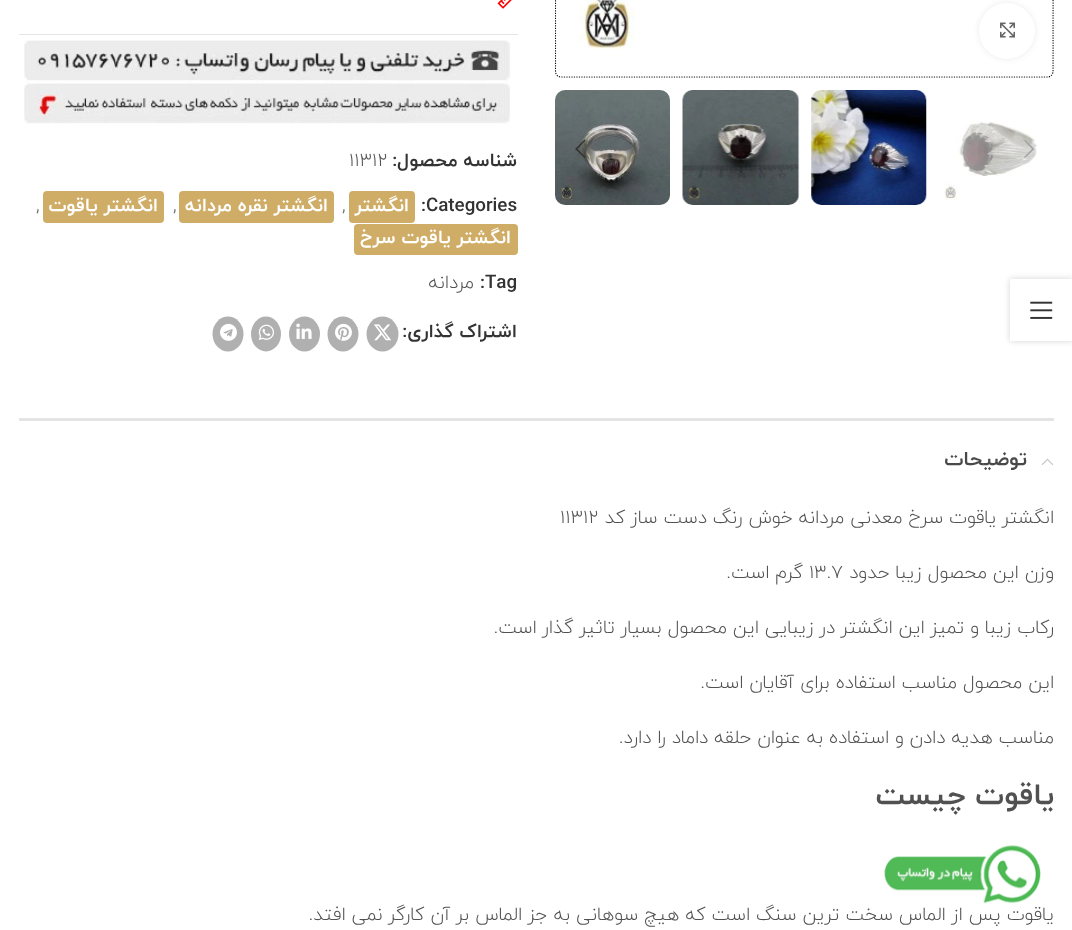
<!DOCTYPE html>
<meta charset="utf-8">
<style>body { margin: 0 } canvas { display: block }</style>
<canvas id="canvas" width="1072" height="930"></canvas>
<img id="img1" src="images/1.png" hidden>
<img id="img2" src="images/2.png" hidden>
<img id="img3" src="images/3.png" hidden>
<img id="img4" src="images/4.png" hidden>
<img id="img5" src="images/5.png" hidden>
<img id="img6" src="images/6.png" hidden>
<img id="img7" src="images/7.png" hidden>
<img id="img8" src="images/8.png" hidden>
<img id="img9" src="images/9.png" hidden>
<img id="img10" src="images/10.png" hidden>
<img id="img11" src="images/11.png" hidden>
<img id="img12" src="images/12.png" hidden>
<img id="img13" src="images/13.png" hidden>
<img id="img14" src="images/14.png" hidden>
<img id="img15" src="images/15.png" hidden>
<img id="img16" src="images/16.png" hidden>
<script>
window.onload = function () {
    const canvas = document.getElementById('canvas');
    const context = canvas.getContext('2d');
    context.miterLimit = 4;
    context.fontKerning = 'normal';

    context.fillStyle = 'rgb(255, 255, 255)';
    context.fillRect(0, 0, 1072, 930);
    context.save();
    context.beginPath();
    context.rect(555, 0, 499, 78);
    context.clip();
    context.beginPath();
    context.moveTo(561, -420.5);
    context.lineTo(1047.5, -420.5);
    context.bezierCurveTo(1050.5, -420.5, 1053, -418, 1053, -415);
    context.lineTo(1053, 71);
    context.bezierCurveTo(1053, 74.5, 1050.5, 77, 1047.5, 77);
    context.lineTo(561, 77);
    context.bezierCurveTo(558, 77, 555.5, 74.5, 555.5, 71);
    context.lineTo(555.5, -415);
    context.bezierCurveTo(555.5, -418, 558, -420.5, 561, -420.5);
    context.closePath();
    context.strokeStyle = 'rgb(0, 0, 0)';
    context.lineWidth = 1.2;
    context.setLineDash([1.25, 1.25]);
    context.stroke();
    context.restore();
    context.drawImage(document.getElementById('img1'), 556, 0, 497, 77);
    context.fillStyle = 'rgba(0, 0, 0, 0.08)';
    context.filter = 'blur(3px)';
    context.beginPath();
    context.roundRect(979, 3, 56, 56, 28);
    context.fill();
    context.filter = 'none';
    context.fillStyle = 'rgb(255, 255, 255)';
    context.beginPath();
    context.arc(1007, 31, 28, 0, 2 * Math.PI);
    context.fill();
    context.drawImage(document.getElementById('img2'), 1000, 22, 15, 16);
    context.drawImage(document.getElementById('img3'), 943, 121, 94, 79);
    context.drawImage(document.getElementById('img4'), 811, 90, 116, 115);
    context.drawImage(document.getElementById('img5'), 682, 90, 118, 115);
    context.drawImage(document.getElementById('img6'), 555, 90, 115, 115);
    context.fillStyle = 'rgb(165, 165, 165)';
    context.beginPath();
    context.moveTo(1024, 140.5);
    context.lineTo(1032, 149);
    context.lineTo(1024, 157);
    context.lineTo(1025, 158);
    context.lineTo(1034.5, 149);
    context.lineTo(1025, 139.5);
    context.closePath();
    context.fill();
    context.fillStyle = 'rgb(51, 51, 51)';
    context.beginPath();
    context.moveTo(585.5, 140.5);
    context.lineTo(584.5, 139.5);
    context.lineTo(575, 149);
    context.lineTo(584.5, 158);
    context.lineTo(585.5, 157);
    context.lineTo(577.5, 149);
    context.closePath();
    context.fill();
    context.drawImage(document.getElementById('img7'), 497, 0, 15, 9);
    context.drawImage(document.getElementById('img8'), 24, 40, 487, 84);
    context.fillStyle = 'rgb(228, 228, 228)';
    context.fillRect(19, 34, 499, 1);
    context.fillStyle = 'rgb(208, 173, 103)';
    context.beginPath();
    context.roundRect(349, 191, 66, 32, 4);
    context.fill();
    context.beginPath();
    context.roundRect(179, 191, 155, 32, 4);
    context.fill();
    context.beginPath();
    context.roundRect(43, 191, 121, 32, 4);
    context.fill();
    context.beginPath();
    context.roundRect(354, 224, 164, 31, 4);
    context.fill();
    context.fillStyle = 'rgb(176, 176, 176)';
    context.beginPath();
    context.ellipse(382.5, 334, 16, 17.5, 0, 0, 2 * Math.PI);
    context.fill();
    context.drawImage(document.getElementById('img9'), 374, 324, 17, 17);
    context.beginPath();
    context.ellipse(343, 334, 15.5, 17.5, 0, 0, 2 * Math.PI);
    context.fill();
    context.drawImage(document.getElementById('img10'), 335, 323, 17, 18);
    context.beginPath();
    context.ellipse(304.5, 334, 15.5, 17.5, 0, 0, 2 * Math.PI);
    context.fill();
    context.drawImage(document.getElementById('img11'), 296, 323, 16, 16);
    context.beginPath();
    context.ellipse(266, 334, 15, 17.5, 0, 0, 2 * Math.PI);
    context.fill();
    context.drawImage(document.getElementById('img12'), 258, 324, 16, 16);
    context.beginPath();
    context.ellipse(228, 334, 15.5, 17.5, 0, 0, 2 * Math.PI);
    context.fill();
    context.drawImage(document.getElementById('img13'), 220, 323, 17, 18);
    context.fillStyle = 'rgb(228, 228, 228)';
    context.fillRect(19, 418, 1035, 3);
    context.drawImage(document.getElementById('img14'), 1041, 458, 12, 7);
    context.drawImage(document.getElementById('img15'), 884, 845, 157, 59);
    context.save();
    context.beginPath();
    context.moveTo(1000, 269);
    context.lineTo(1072, 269);
    context.lineTo(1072, 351);
    context.lineTo(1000, 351);
    context.closePath();
    context.moveTo(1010, 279);
    context.lineTo(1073, 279);
    context.lineTo(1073, 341);
    context.lineTo(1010, 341);
    context.closePath();
    context.clip('evenodd');
    context.fillStyle = 'rgba(0, 0, 0, 0.17)';
    context.filter = 'blur(3px)';
    context.beginPath();
    context.rect(1010, 279, 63, 62);
    context.fill();
    context.filter = 'none';
    context.restore();
    context.drawImage(document.getElementById('img16'), 1030, 301, 23, 18);
    context.direction = 'rtl';
    context.font = 'bold 18.75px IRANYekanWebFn';
    context.fillStyle = 'rgb(51, 51, 51)';
    context.fillText('شناسه محصول:', 517, 166);
    context.direction = 'ltr';
    context.font = '300 18.75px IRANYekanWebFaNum';
    context.fillStyle = 'rgb(81, 81, 81)';
    context.fillText('11312', 349, 166);
    context.font = 'bold 18.75px IRANYekanWebFn';
    context.fillStyle = 'rgb(51, 51, 51)';
    context.fillText(':Categories', 421, 211);
    context.direction = 'rtl';
    context.fillStyle = 'rgb(255, 255, 255)';
    context.fillText('انگشتر', 409, 211);
    context.direction = 'ltr';
    context.font = '300 18.75px IRANYekanWebFaNum';
    context.fillStyle = 'rgb(81, 81, 81)';
    context.fillText(',', 342, 211);
    context.direction = 'rtl';
    context.font = 'bold 18.75px IRANYekanWebFn';
    context.fillStyle = 'rgb(255, 255, 255)';
    context.fillText('انگشتر نقره مردانه', 328, 211);
    context.direction = 'ltr';
    context.font = '300 18.75px IRANYekanWebFaNum';
    context.fillStyle = 'rgb(81, 81, 81)';
    context.fillText(',', 173, 211);
    context.direction = 'rtl';
    context.font = 'bold 18.75px IRANYekanWebFn';
    context.fillStyle = 'rgb(255, 255, 255)';
    context.fillText('انگشتر یاقوت', 158, 211);
    context.direction = 'ltr';
    context.font = '300 18.75px IRANYekanWebFaNum';
    context.fillStyle = 'rgb(81, 81, 81)';
    context.fillText(',', 36, 211);
    context.direction = 'rtl';
    context.font = 'bold 18.75px IRANYekanWebFn';
    context.fillStyle = 'rgb(255, 255, 255)';
    context.fillText('انگشتر یاقوت سرخ', 511, 243);
    context.direction = 'ltr';
    context.fillStyle = 'rgb(51, 51, 51)';
    context.fillText(':Tag', 480, 288);
    context.direction = 'rtl';
    context.font = '300 18.75px IRANYekanWebFaNum';
    context.fillStyle = 'rgb(81, 81, 81)';
    context.fillText('مردانه', 474, 288);
    context.font = 'bold 18.75px IRANYekanWebFn';
    context.fillStyle = 'rgb(51, 51, 51)';
    context.fillText('اشتراک گذاری:', 517, 337);
    context.font = 'bold 20px IRANYekanWebFn';
    context.fillStyle = 'rgb(73, 73, 73)';
    context.fillText('توضیحات', 1027, 465);
    context.font = '300 18.75px IRANYekanWebFaNum';
    context.fillStyle = 'rgb(81, 81, 81)';
    context.fillText('انگشتر یاقوت سرخ معدنی مردانه خوش رنگ دست ساز کد', 1054, 523);
    context.direction = 'ltr';
    context.fillText('11312', 560, 523);
    context.direction = 'rtl';
    context.fillText('وزن این محصول زیبا حدود', 1054, 578);
    context.direction = 'ltr';
    context.fillText('13.7', 809, 578);
    context.direction = 'rtl';
    context.fillText('گرم است.', 803, 578);
    context.fillText('رکاب زیبا و تمیز این انگشتر در زیبایی این محصول بسیار تاثیر گذار است.', 1054, 633);
    context.fillText('این محصول مناسب استفاده برای آقایان است.', 1054, 688);
    context.fillText('مناسب هدیه دادن و استفاده به عنوان حلقه داماد را دارد.', 1054, 743);
    context.font = 'bold 30px IRANYekanWebFn';
    context.fillText('یاقوت چیست', 1054, 804);
    context.font = '300 18.75px IRANYekanWebFaNum';
    context.fillText('یاقوت پس از الماس سخت ترین سنگ است که هیچ سوهانی به جز الماس بر آن کارگر نمی افتد.', 1054, 920);
};
</script>
